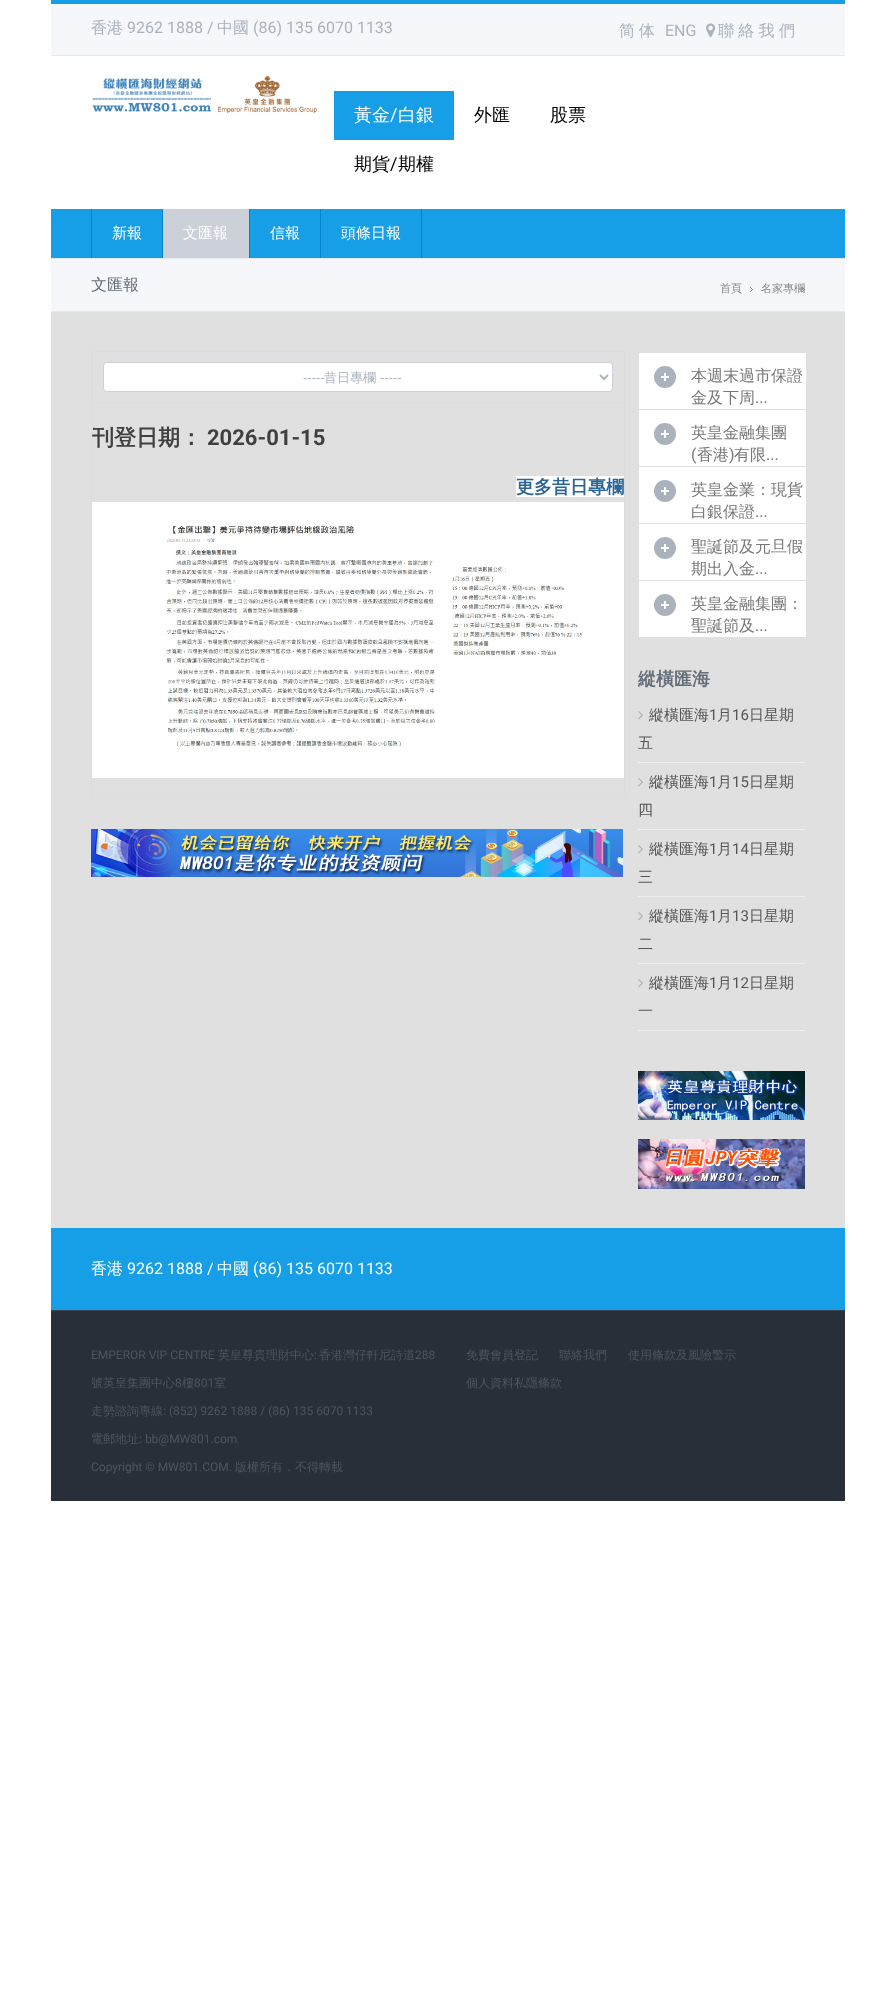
<!DOCTYPE html>
<meta charset="utf-8">
<style>body { margin: 0 } canvas { display: block }</style>
<canvas id="canvas" width="896" height="2005"></canvas>
<img id="img1" src="images/1.png" hidden>
<img id="img2" src="images/2.png" hidden>
<img id="img3" src="images/3.png" hidden>
<img id="img4" src="images/4.png" hidden>
<img id="img5" src="images/5.png" hidden>
<img id="img6" src="images/6.png" hidden>
<img id="img7" src="images/7.png" hidden>
<img id="img8" src="images/8.png" hidden>
<img id="img9" src="images/9.png" hidden>
<script>
window.onload = function () {
    const canvas = document.getElementById('canvas');
    const context = canvas.getContext('2d');
    context.miterLimit = 4;
    context.fontKerning = 'normal';

    context.fillStyle = 'rgb(255, 255, 255)';
    context.fillRect(0, 0, 896, 2005);
    context.fillStyle = 'rgb(246, 247, 251)';
    context.fillRect(51, 4, 794, 51);
    context.fillStyle = 'rgb(22, 159, 230)';
    context.fillRect(51, 0, 794, 4);
    context.fillStyle = 'rgb(230, 233, 238)';
    context.fillRect(51, 55, 794, 1);
    context.drawImage(document.getElementById('img1'), 706, 23, 10, 15);
    context.drawImage(document.getElementById('img2'), 92, 76, 225, 37);
    context.fillStyle = 'rgb(22, 159, 230)';
    context.fillRect(334, 91, 120, 49);
    context.fillRect(51, 209, 794, 49);
    context.fillStyle = 'rgb(0, 132, 201)';
    context.fillRect(91, 209, 1, 49);
    context.fillStyle = 'rgb(204, 208, 217)';
    context.fillRect(163, 209, 86, 49);
    context.fillStyle = 'rgb(0, 132, 201)';
    context.fillRect(162, 209, 1, 49);
    context.fillRect(249, 209, 1, 49);
    context.fillRect(421, 209, 1, 49);
    context.fillRect(320, 209, 1, 49);
    context.fillStyle = 'rgb(224, 224, 224)';
    context.fillRect(51, 312, 794, 916);
    context.fillStyle = 'rgb(246, 247, 251)';
    context.fillRect(51, 259, 794, 52);
    context.fillStyle = 'rgb(230, 233, 238)';
    context.fillRect(51, 258, 794, 1);
    context.fillRect(51, 311, 794, 1);
    context.drawImage(document.getElementById('img3'), 750, 287, 3, 5);
    context.drawImage(document.getElementById('img3'), 802, 287, 3, 5);
    context.strokeStyle = 'rgb(221, 221, 221)';
    context.strokeRect(91.5, 351.5, 533, 447);
    context.save();
    context.beginPath();
    context.rect(92, 352, 532, 446);
    context.clip();
    context.strokeRect(92.5, 351.5, 533, 51);
    context.restore();
    context.fillStyle = 'rgb(255, 255, 255)';
    context.beginPath();
    context.roundRect(103.5, 362.5, 509, 29, 3.5);
    context.fill();
    context.strokeStyle = 'rgb(204, 208, 217)';
    context.stroke();
    context.beginPath();
    context.moveTo(600, 375);
    context.lineTo(604, 379);
    context.lineTo(608, 375);
    context.strokeStyle = 'rgb(170, 179, 188)';
    context.lineWidth = 2;
    context.stroke();
    context.fillRect(516, 476, 108, 21);
    context.fillRect(92, 502, 532, 276);
    context.drawImage(document.getElementById('img4'), 165, 522, 417, 225);
    context.drawImage(document.getElementById('img5'), 91, 829, 532, 48);
    context.fillRect(639, 353, 167, 56);
    context.fillStyle = 'rgb(170, 178, 189)';
    context.beginPath();
    context.arc(665, 377, 11, 0, 2 * Math.PI);
    context.fill();
    context.drawImage(document.getElementById('img6'), 661, 373, 8, 8);
    context.fillStyle = 'rgb(255, 255, 255)';
    context.fillRect(639, 410, 167, 56);
    context.fillStyle = 'rgb(170, 178, 189)';
    context.beginPath();
    context.arc(665, 434, 11, 0, 2 * Math.PI);
    context.fill();
    context.drawImage(document.getElementById('img6'), 661, 430, 8, 8);
    context.fillStyle = 'rgb(255, 255, 255)';
    context.fillRect(639, 467, 167, 56);
    context.fillStyle = 'rgb(170, 178, 189)';
    context.beginPath();
    context.arc(665, 491, 11, 0, 2 * Math.PI);
    context.fill();
    context.drawImage(document.getElementById('img6'), 661, 487, 8, 8);
    context.fillStyle = 'rgb(255, 255, 255)';
    context.fillRect(639, 524, 167, 56);
    context.fillStyle = 'rgb(170, 178, 189)';
    context.beginPath();
    context.arc(665, 548, 11, 0, 2 * Math.PI);
    context.fill();
    context.drawImage(document.getElementById('img6'), 661, 544, 8, 8);
    context.fillStyle = 'rgb(255, 255, 255)';
    context.fillRect(639, 581, 167, 56);
    context.fillStyle = 'rgb(170, 178, 189)';
    context.beginPath();
    context.arc(665, 605, 11, 0, 2 * Math.PI);
    context.fill();
    context.drawImage(document.getElementById('img6'), 661, 601, 8, 8);
    context.fillStyle = 'rgb(239, 239, 239)';
    context.fillRect(638, 762, 167, 1);
    context.drawImage(document.getElementById('img7'), 638, 711, 5, 9);
    context.fillRect(638, 829, 167, 1);
    context.drawImage(document.getElementById('img7'), 638, 778, 5, 9);
    context.fillRect(638, 896, 167, 1);
    context.drawImage(document.getElementById('img7'), 638, 845, 5, 9);
    context.fillRect(638, 963, 167, 1);
    context.drawImage(document.getElementById('img7'), 638, 912, 5, 9);
    context.fillRect(638, 1030, 167, 1);
    context.drawImage(document.getElementById('img7'), 638, 979, 5, 9);
    context.drawImage(document.getElementById('img8'), 638, 1071, 167, 49);
    context.drawImage(document.getElementById('img9'), 638, 1139, 167, 50);
    context.fillStyle = 'rgb(22, 159, 230)';
    context.fillRect(51, 1228, 794, 82);
    context.fillStyle = 'rgb(41, 47, 56)';
    context.fillRect(51, 1311, 794, 190);
    context.fillStyle = 'rgb(62, 68, 76)';
    context.fillRect(51, 1310, 794, 1);
    context.font = '500 16px WenQuanYi Zen Hei';
    context.fillStyle = 'rgb(170, 178, 189)';
    context.fillText('香港', 91, 33);
    context.font = '16px Roboto';
    context.fillText('9262 1888 /', 127, 33);
    context.font = '500 16px WenQuanYi Zen Hei';
    context.fillText('中國', 217, 33);
    context.font = '16px Roboto';
    context.fillText('(86) 135 6070 1133', 253, 33);
    context.wordSpacing = '-1px';
    context.font = '500 16px WenQuanYi Zen Hei';
    context.fillText('简 体', 619, 36);
    context.wordSpacing = '0px';
    context.font = '16px Roboto';
    context.fillText('ENG', 665, 36);
    context.wordSpacing = '-0.5px';
    context.font = '500 16px WenQuanYi Zen Hei';
    context.fillText('聯 絡 我 們', 718, 36);
    context.wordSpacing = '0px';
    context.font = '500 18px WenQuanYi Zen Hei';
    context.fillStyle = 'rgb(255, 255, 255)';
    context.fillText('黃金', 354, 121);
    context.font = '18px Roboto';
    context.fillText('/', 390, 121);
    context.font = '500 18px WenQuanYi Zen Hei';
    context.fillText('白銀', 398, 121);
    context.fillStyle = 'rgb(0, 0, 0)';
    context.fillText('外匯', 474, 121);
    context.fillText('股票', 550, 121);
    context.fillText('期貨', 354, 170);
    context.font = '18px Roboto';
    context.fillText('/', 390, 170);
    context.font = '500 18px WenQuanYi Zen Hei';
    context.fillText('期權', 398, 170);
    context.font = '500 15px WenQuanYi Zen Hei';
    context.fillStyle = 'rgb(255, 255, 255)';
    context.fillText('新報', 112, 238);
    context.fillText('文匯報', 183, 238);
    context.fillText('信報', 270, 238);
    context.fillText('頭條日報', 341, 238);
    context.font = '500 16px WenQuanYi Zen Hei';
    context.fillStyle = 'rgb(101, 109, 120)';
    context.fillText('文匯報', 91, 290);
    context.font = '500 11px WenQuanYi Zen Hei';
    context.fillStyle = 'rgb(136, 136, 136)';
    context.fillText('首頁', 720, 292);
    context.fillText('名家專欄', 761, 292);
    context.font = '13px Liberation Sans';
    context.fillStyle = 'rgb(170, 178, 189)';
    context.fillText('-----', 303, 382);
    context.font = '500 13px WenQuanYi Zen Hei';
    context.fillText('昔日專欄', 324, 382);
    context.font = '13px Liberation Sans';
    context.fillText('-----', 380, 382);
    context.font = 'bold 22px WenQuanYi Zen Hei';
    context.fillStyle = 'rgb(64, 64, 64)';
    context.fillText('刊登日期：', 92, 445);
    context.font = 'bold 22px Roboto';
    context.fillText('2026-01-15', 207, 445);
    context.font = 'bold 18px WenQuanYi Zen Hei';
    context.fillStyle = 'rgb(42, 100, 150)';
    context.fillText('更多昔日專欄', 516, 493);
    context.font = '500 16px WenQuanYi Zen Hei';
    context.fillStyle = 'rgb(119, 119, 119)';
    context.fillText('本週末過市保證', 691, 381);
    context.fillText('金及下周', 691, 403);
    context.font = '16px Roboto';
    context.fillText('...', 755, 403);
    context.font = '500 16px WenQuanYi Zen Hei';
    context.fillText('英皇金融集團', 691, 438);
    context.font = '16px Roboto';
    context.fillText('(', 691, 460);
    context.font = '500 16px WenQuanYi Zen Hei';
    context.fillText('香港', 697, 460);
    context.font = '16px Roboto';
    context.fillText(')', 729, 460);
    context.font = '500 16px WenQuanYi Zen Hei';
    context.fillText('有限', 734, 460);
    context.font = '16px Roboto';
    context.fillText('...', 766, 460);
    context.font = '500 16px WenQuanYi Zen Hei';
    context.fillText('英皇金業：現貨', 691, 495);
    context.fillText('白銀保證', 691, 517);
    context.font = '16px Roboto';
    context.fillText('...', 755, 517);
    context.font = '500 16px WenQuanYi Zen Hei';
    context.fillText('聖誕節及元旦假', 691, 552);
    context.fillText('期出入金', 691, 574);
    context.font = '16px Roboto';
    context.fillText('...', 755, 574);
    context.font = '500 16px WenQuanYi Zen Hei';
    context.fillText('英皇金融集團：', 691, 609);
    context.fillText('聖誕節及', 691, 631);
    context.font = '16px Roboto';
    context.fillText('...', 755, 631);
    context.font = 'bold 18px WenQuanYi Zen Hei';
    context.fillStyle = 'rgb(101, 109, 120)';
    context.fillText('縱橫匯海', 638, 685);
    context.font = '500 15px WenQuanYi Zen Hei';
    context.fillStyle = 'rgb(85, 85, 85)';
    context.fillText('縱橫匯海', 649, 720);
    context.font = '15px Roboto';
    context.fillText('1', 709, 720);
    context.font = '500 15px WenQuanYi Zen Hei';
    context.fillText('月', 717, 720);
    context.font = '15px Roboto';
    context.fillText('16', 732, 720);
    context.font = '500 15px WenQuanYi Zen Hei';
    context.fillText('日星期', 749, 720);
    context.fillText('五', 638, 748);
    context.fillText('縱橫匯海', 649, 787);
    context.font = '15px Roboto';
    context.fillText('1', 709, 787);
    context.font = '500 15px WenQuanYi Zen Hei';
    context.fillText('月', 717, 787);
    context.font = '15px Roboto';
    context.fillText('15', 732, 787);
    context.font = '500 15px WenQuanYi Zen Hei';
    context.fillText('日星期', 749, 787);
    context.fillText('四', 638, 815);
    context.fillText('縱橫匯海', 649, 854);
    context.font = '15px Roboto';
    context.fillText('1', 709, 854);
    context.font = '500 15px WenQuanYi Zen Hei';
    context.fillText('月', 717, 854);
    context.font = '15px Roboto';
    context.fillText('14', 732, 854);
    context.font = '500 15px WenQuanYi Zen Hei';
    context.fillText('日星期', 749, 854);
    context.fillText('三', 638, 882);
    context.fillText('縱橫匯海', 649, 921);
    context.font = '15px Roboto';
    context.fillText('1', 709, 921);
    context.font = '500 15px WenQuanYi Zen Hei';
    context.fillText('月', 717, 921);
    context.font = '15px Roboto';
    context.fillText('13', 732, 921);
    context.font = '500 15px WenQuanYi Zen Hei';
    context.fillText('日星期', 749, 921);
    context.fillText('二', 638, 949);
    context.fillText('縱橫匯海', 649, 988);
    context.font = '15px Roboto';
    context.fillText('1', 709, 988);
    context.font = '500 15px WenQuanYi Zen Hei';
    context.fillText('月', 717, 988);
    context.font = '15px Roboto';
    context.fillText('12', 732, 988);
    context.font = '500 15px WenQuanYi Zen Hei';
    context.fillText('日星期', 749, 988);
    context.fillText('一', 638, 1016);
    context.font = '500 16px WenQuanYi Zen Hei';
    context.fillStyle = 'rgb(255, 255, 255)';
    context.fillText('香港', 91, 1274);
    context.font = '16px Roboto';
    context.fillText('9262 1888 /', 127, 1274);
    context.font = '500 16px WenQuanYi Zen Hei';
    context.fillText('中國', 217, 1274);
    context.font = '16px Roboto';
    context.fillText('(86) 135 6070 1133', 253, 1274);
    context.font = '12px Roboto';
    context.fillStyle = 'rgb(77, 85, 96)';
    context.fillText('EMPEROR VIP CENTRE', 91, 1359);
    context.font = '500 12px WenQuanYi Zen Hei';
    context.fillText('英皇尊貴理財中心', 218, 1359);
    context.font = '12px Roboto';
    context.fillText(':', 314, 1359);
    context.font = '500 12px WenQuanYi Zen Hei';
    context.fillText('香港灣仔軒尼詩道', 319, 1359);
    context.font = '12px Roboto';
    context.fillText('288', 415, 1359);
    context.font = '500 12px WenQuanYi Zen Hei';
    context.fillText('號英皇集團中心', 91, 1387);
    context.font = '12px Roboto';
    context.fillText('8', 175, 1387);
    context.font = '500 12px WenQuanYi Zen Hei';
    context.fillText('樓', 182, 1387);
    context.font = '12px Roboto';
    context.fillText('801', 194, 1387);
    context.font = '500 12px WenQuanYi Zen Hei';
    context.fillText('室', 214, 1387);
    context.fillText('走勢諮詢專線', 91, 1415);
    context.font = '12px Roboto';
    context.fillText(': (852) 9262 1888 / (86) 135 6070 1133', 163, 1415);
    context.font = '500 12px WenQuanYi Zen Hei';
    context.fillText('電郵地址', 91, 1443);
    context.font = '12px Roboto';
    context.fillText(': bb@MW801.com', 139, 1443);
    context.fillText('Copyright © MW801.COM.', 91, 1471);
    context.font = '500 12px WenQuanYi Zen Hei';
    context.fillText('版權所有，不得轉載', 235, 1471);
    context.fillText('免費會員登記', 466, 1359);
    context.fillText('聯絡我們', 559, 1359);
    context.fillText('使用條款及風險警示', 628, 1359);
    context.fillText('個人資料私隱條款', 466, 1387);
};
</script>
